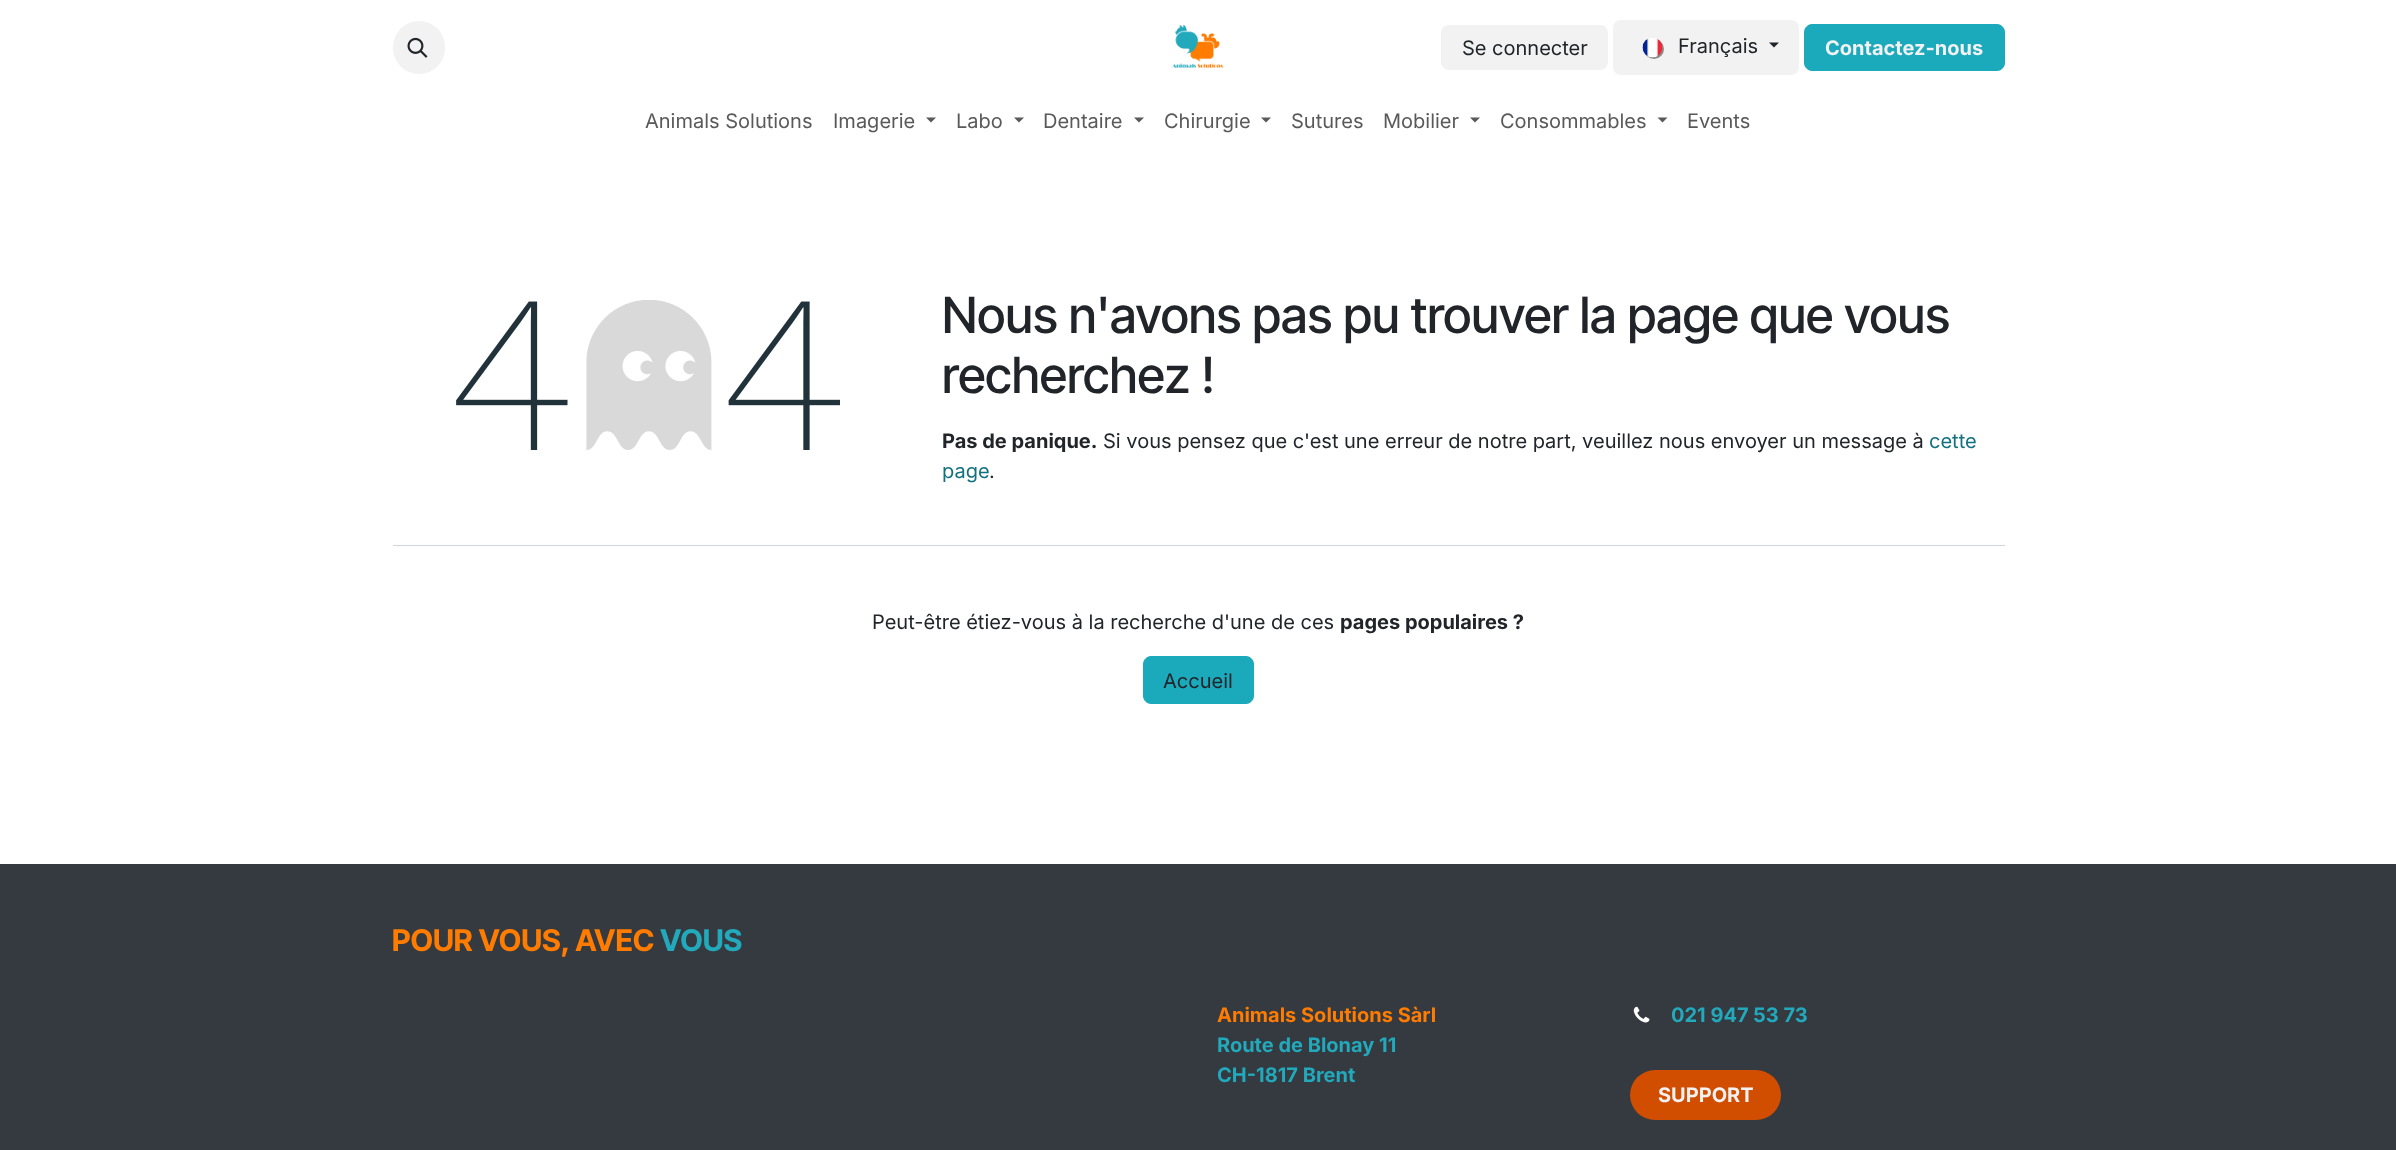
<!DOCTYPE html>
<meta charset="utf-8">
<style>body { margin: 0 } canvas { display: block }</style>
<canvas id="canvas" width="2396" height="1150"></canvas>
<img id="img1" src="images/1.png" hidden>
<img id="img2" src="images/2.png" hidden>
<img id="img3" src="images/3.png" hidden>
<img id="img4" src="images/4.png" hidden>
<img id="img5" src="images/5.png" hidden>
<script>
window.onload = function () {
    const canvas = document.getElementById('canvas');
    const context = canvas.getContext('2d');
    context.miterLimit = 4;
    context.fontKerning = 'normal';

    context.fillStyle = 'rgb(255, 255, 255)';
    context.fillRect(0, 0, 2396, 1150);
    context.fillStyle = 'rgb(242, 242, 242)';
    context.beginPath();
    context.roundRect(393, 21, 52, 53, 26);
    context.fill();
    context.drawImage(document.getElementById('img1'), 407, 37, 21, 21);
    context.drawImage(document.getElementById('img2'), 1172, 24, 52, 44);
    context.beginPath();
    context.roundRect(1441, 25, 167, 45, 8);
    context.fill();
    context.beginPath();
    context.roundRect(1613, 20, 186, 55, 8);
    context.fill();
    context.fillStyle = 'rgba(0, 0, 0, 0.43)';
    context.filter = 'blur(0.5px)';
    context.beginPath();
    context.roundRect(1644, 39, 20, 20, 10);
    context.fill();
    context.filter = 'none';
    context.drawImage(document.getElementById('img3'), 1642, 38, 21, 20);
    context.fillStyle = 'rgb(33, 37, 41)';
    context.beginPath();
    context.moveTo(1769, 42.5);
    context.lineTo(1779, 42.5);
    context.lineTo(1774, 47.5);
    context.closePath();
    context.fill();
    context.fillStyle = 'rgb(27, 169, 188)';
    context.beginPath();
    context.roundRect(1804.5, 24.5, 200, 46, 7.5);
    context.fill();
    context.strokeStyle = 'rgb(27, 169, 188)';
    context.stroke();
    context.fillStyle = 'rgb(89, 89, 89)';
    context.beginPath();
    context.moveTo(926, 117.5);
    context.lineTo(936, 117.5);
    context.lineTo(931, 122.5);
    context.closePath();
    context.fill();
    context.beginPath();
    context.moveTo(1014, 117.5);
    context.lineTo(1024, 117.5);
    context.lineTo(1019, 122.5);
    context.closePath();
    context.fill();
    context.beginPath();
    context.moveTo(1134, 117.5);
    context.lineTo(1144, 117.5);
    context.lineTo(1139, 122.5);
    context.closePath();
    context.fill();
    context.beginPath();
    context.moveTo(1261, 117.5);
    context.lineTo(1271, 117.5);
    context.lineTo(1266, 122.5);
    context.closePath();
    context.fill();
    context.beginPath();
    context.moveTo(1470, 117.5);
    context.lineTo(1480, 117.5);
    context.lineTo(1475, 122.5);
    context.closePath();
    context.fill();
    context.beginPath();
    context.moveTo(1657.5, 117.5);
    context.lineTo(1667.5, 117.5);
    context.lineTo(1662.5, 122.5);
    context.closePath();
    context.fill();
    context.drawImage(document.getElementById('img4'), 456, 300, 384, 150);
    context.fillStyle = 'rgb(206, 212, 218)';
    context.fillRect(393, 545, 1612, 1);
    context.fillStyle = 'rgb(27, 169, 188)';
    context.beginPath();
    context.roundRect(1143.5, 656.5, 110, 47, 7.5);
    context.fill();
    context.stroke();
    context.fillStyle = 'rgb(52, 58, 64)';
    context.fillRect(0, 864, 2396, 286);
    context.drawImage(document.getElementById('img5'), 1633, 1006, 17, 17);
    context.fillStyle = 'rgb(209, 77, 0)';
    context.beginPath();
    context.roundRect(1630, 1070, 151, 50, 25);
    context.fill();
    context.font = '20px Inter';
    context.fillStyle = 'rgb(33, 37, 41)';
    context.fillText('Se connecter', 1462, 55);
    context.fillText('Français', 1678, 53);
    context.font = 'bold 20px Inter';
    context.fillStyle = 'rgb(243, 242, 242)';
    context.fillText('Contactez-nous', 1825, 55);
    context.font = '20px Inter';
    context.fillStyle = 'rgb(89, 89, 89)';
    context.fillText('Animals Solutions', 645, 128);
    context.fillText('Imagerie', 833, 128);
    context.fillText('Labo', 956, 128);
    context.fillText('Dentaire', 1043, 128);
    context.fillText('Chirurgie', 1164, 128);
    context.fillText('Sutures', 1291, 128);
    context.fillText('Mobilier', 1383, 128);
    context.fillText('Consommables', 1500, 128);
    context.fillText('Events', 1687, 128);
    context.font = '500 50px Inter Tight';
    context.fillStyle = 'rgb(33, 37, 41)';
    context.fillText('Nous n\'avons pas pu trouver la page que vous', 942, 333);
    context.fillText('recherchez !', 942, 393);
    context.font = 'bold 20px Inter';
    context.fillText('Pas de panique.', 942, 448);
    context.font = '20px Inter';
    context.fillText('Si vous pensez que c\'est une erreur de notre part, veuillez nous envoyer un message à', 1103, 448);
    context.fillStyle = 'rgb(18, 113, 126)';
    context.fillText('cette', 1929, 448);
    context.fillText('page', 942, 478);
    context.fillStyle = 'rgb(33, 37, 41)';
    context.fillText('.', 989, 478);
    context.fillText('Peut-être étiez-vous à la recherche d\'une de ces', 872, 629);
    context.font = 'bold 20px Inter';
    context.fillText('pages populaires ?', 1340, 629);
    context.font = '20px Inter';
    context.fillText('Accueil', 1163, 688);
    context.font = 'bold 30px Inter Tight';
    context.fillStyle = 'rgb(255, 124, 0)';
    context.fillText('POUR VOUS, AVEC', 392, 951);
    context.fillStyle = 'rgb(34, 169, 188)';
    context.fillText('VOUS', 660, 951);
    context.font = 'bold 20px Inter';
    context.fillStyle = 'rgb(255, 124, 0)';
    context.fillText('Animals Solutions Sàrl', 1217, 1022);
    context.fillStyle = 'rgb(34, 169, 188)';
    context.fillText('Route de Blonay 11', 1217, 1052);
    context.fillText('CH-1817 Brent', 1217, 1082);
    context.fillText('021 947 53 73', 1671, 1022);
    context.fillStyle = 'rgb(243, 242, 242)';
    context.fillText('SUPPORT', 1658, 1102);
};
</script>
